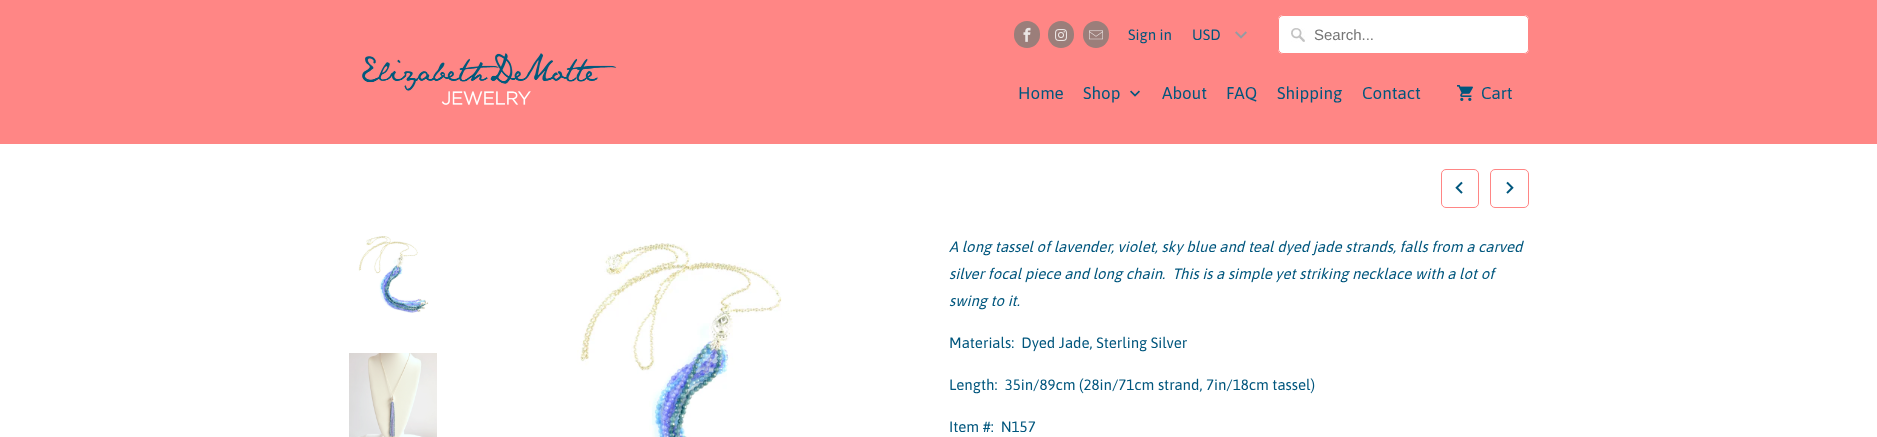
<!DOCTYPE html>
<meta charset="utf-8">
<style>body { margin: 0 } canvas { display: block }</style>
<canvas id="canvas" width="1877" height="437"></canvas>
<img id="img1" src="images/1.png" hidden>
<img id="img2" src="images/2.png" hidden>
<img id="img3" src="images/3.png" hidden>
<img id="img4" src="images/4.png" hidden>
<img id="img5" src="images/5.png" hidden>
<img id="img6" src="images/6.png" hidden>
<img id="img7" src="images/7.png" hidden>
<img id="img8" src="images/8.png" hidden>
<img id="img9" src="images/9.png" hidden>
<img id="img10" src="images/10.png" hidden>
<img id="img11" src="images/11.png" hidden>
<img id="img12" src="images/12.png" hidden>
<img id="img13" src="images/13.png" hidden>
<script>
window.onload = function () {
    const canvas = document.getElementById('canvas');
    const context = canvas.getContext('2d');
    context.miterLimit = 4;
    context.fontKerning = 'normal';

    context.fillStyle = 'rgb(255, 255, 255)';
    context.fillRect(0, 0, 1877, 437);
    context.fillStyle = 'rgb(255, 134, 133)';
    context.fillRect(0, 0, 1877, 144);
    context.drawImage(document.getElementById('img1'), 362, 53, 255, 52);
    context.fillStyle = 'rgb(155, 126, 122)';
    context.beginPath();
    context.roundRect(1014, 21, 26, 27, 13);
    context.fill();
    context.drawImage(document.getElementById('img2'), 1023, 27, 8, 15);
    context.beginPath();
    context.roundRect(1048, 21, 26, 27, 13);
    context.fill();
    context.drawImage(document.getElementById('img3'), 1055, 29, 12, 12);
    context.beginPath();
    context.roundRect(1083, 21, 26, 27, 13);
    context.fill();
    context.drawImage(document.getElementById('img4'), 1089, 30, 14, 10);
    context.drawImage(document.getElementById('img5'), 1235, 31, 12, 8);
    context.fillStyle = 'rgb(255, 255, 255)';
    context.beginPath();
    context.roundRect(1278, 15, 251, 39, 5);
    context.fill();
    context.drawImage(document.getElementById('img6'), 1291, 28, 14, 14);
    context.beginPath();
    context.roundRect(1278.5, 15.5, 250, 38, 4.5);
    context.strokeStyle = 'rgb(255, 134, 133)';
    context.stroke();
    context.drawImage(document.getElementById('img7'), 1130, 90, 10, 7);
    context.drawImage(document.getElementById('img8'), 1457, 85, 16, 16);
    context.beginPath();
    context.roundRect(1441.5, 169.5, 37, 38, 4.5);
    context.stroke();
    context.drawImage(document.getElementById('img9'), 1455, 181, 8, 13);
    context.beginPath();
    context.roundRect(1490.5, 169.5, 38, 38, 4.5);
    context.stroke();
    context.drawImage(document.getElementById('img10'), 1506, 181, 8, 13);
    context.drawImage(document.getElementById('img11'), 358, 236, 71, 77);
    context.drawImage(document.getElementById('img12'), 349, 353, 88, 84);
    context.drawImage(document.getElementById('img13'), 577, 243, 205, 194);
    context.font = '15px Asap';
    context.fillStyle = 'rgb(0, 86, 125)';
    context.fillText('Sign in', 1128, 40);
    context.fillText('USD', 1192, 40);
    context.font = '15px Liberation Sans';
    context.fillStyle = 'rgb(117, 117, 117)';
    context.fillText('Search...', 1314, 40);
    context.font = '17px Asap';
    context.fillStyle = 'rgb(0, 86, 125)';
    context.fillText('Home', 1018, 99);
    context.fillText('Shop', 1083, 99);
    context.fillText('About', 1162, 99);
    context.fillText('FAQ', 1226, 99);
    context.fillText('Shipping', 1277, 99);
    context.fillText('Contact', 1362, 99);
    context.fillText('Cart', 1481, 99);
    context.font = 'italic 15px Asap';
    context.fillText('A long tassel of lavender, violet, sky blue and teal dyed jade strands, falls from a carved', 949, 252);
    context.fillText('silver focal piece and long chain.  This is a simple yet striking necklace with a lot of', 949, 279);
    context.fillText('swing to it.', 949, 306);
    context.font = '15px Asap';
    context.fillText('Materials:  Dyed Jade, Sterling Silver', 949, 348);
    context.fillText('Length:  35in/89cm (28in/71cm strand, 7in/18cm tassel)', 949, 390);
    context.fillText('Item #:  N157', 949, 432);
};
</script>
